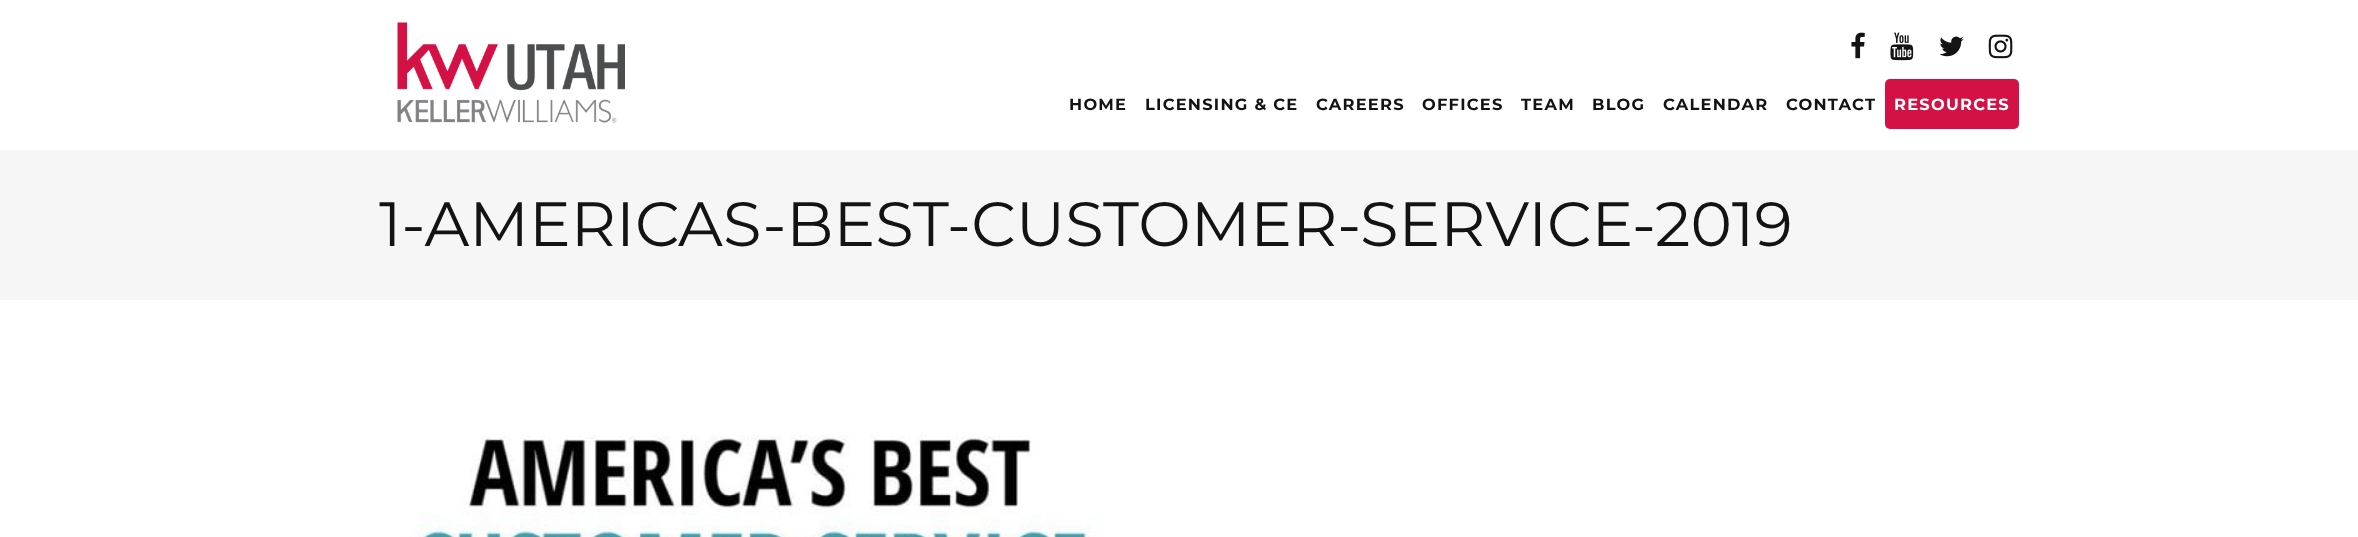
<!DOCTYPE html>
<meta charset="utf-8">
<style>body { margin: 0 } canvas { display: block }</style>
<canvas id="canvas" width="2358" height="537"></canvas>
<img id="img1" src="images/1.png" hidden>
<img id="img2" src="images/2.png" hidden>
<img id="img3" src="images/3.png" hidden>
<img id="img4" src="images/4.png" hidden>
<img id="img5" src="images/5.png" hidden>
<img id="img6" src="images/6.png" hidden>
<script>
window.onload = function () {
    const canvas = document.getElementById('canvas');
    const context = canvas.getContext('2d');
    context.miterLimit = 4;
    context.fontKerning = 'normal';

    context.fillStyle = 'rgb(255, 255, 255)';
    context.fillRect(0, 0, 2358, 537);
    context.drawImage(document.getElementById('img1'), 397, 22, 228, 101);
    context.drawImage(document.getElementById('img2'), 1851, 32, 14, 27);
    context.drawImage(document.getElementById('img3'), 1890, 32, 24, 29);
    context.drawImage(document.getElementById('img4'), 1939, 36, 25, 21);
    context.drawImage(document.getElementById('img5'), 1988, 34, 25, 25);
    context.fillStyle = 'rgb(211, 17, 69)';
    context.beginPath();
    context.roundRect(1885, 79, 134, 50, 5);
    context.fill();
    context.fillStyle = 'rgb(246, 246, 246)';
    context.fillRect(0, 150, 2358, 150);
    context.drawImage(document.getElementById('img6'), 404, 435, 696, 102);
    context.letterSpacing = '1.25px';
    context.font = 'bold 16.25px Montserrat';
    context.fillStyle = 'rgb(19, 19, 19)';
    context.fillText('HOME', 1069, 110);
    context.fillText('LICENSING & CE', 1145, 110);
    context.fillText('CAREERS', 1316, 110);
    context.fillText('OFFICES', 1422, 110);
    context.fillText('TEAM', 1521, 110);
    context.fillText('BLOG', 1592, 110);
    context.fillText('CALENDAR', 1663, 110);
    context.fillText('CONTACT', 1786, 110);
    context.fillStyle = 'rgb(255, 255, 255)';
    context.fillText('RESOURCES', 1894, 110);
    context.letterSpacing = '0px';
    context.font = '62.5px Montserrat';
    context.fillStyle = 'rgb(19, 19, 19)';
    context.fillText('1-AMERICAS-BEST-CUSTOMER-SERVICE-2019', 379, 246);
};
</script>
